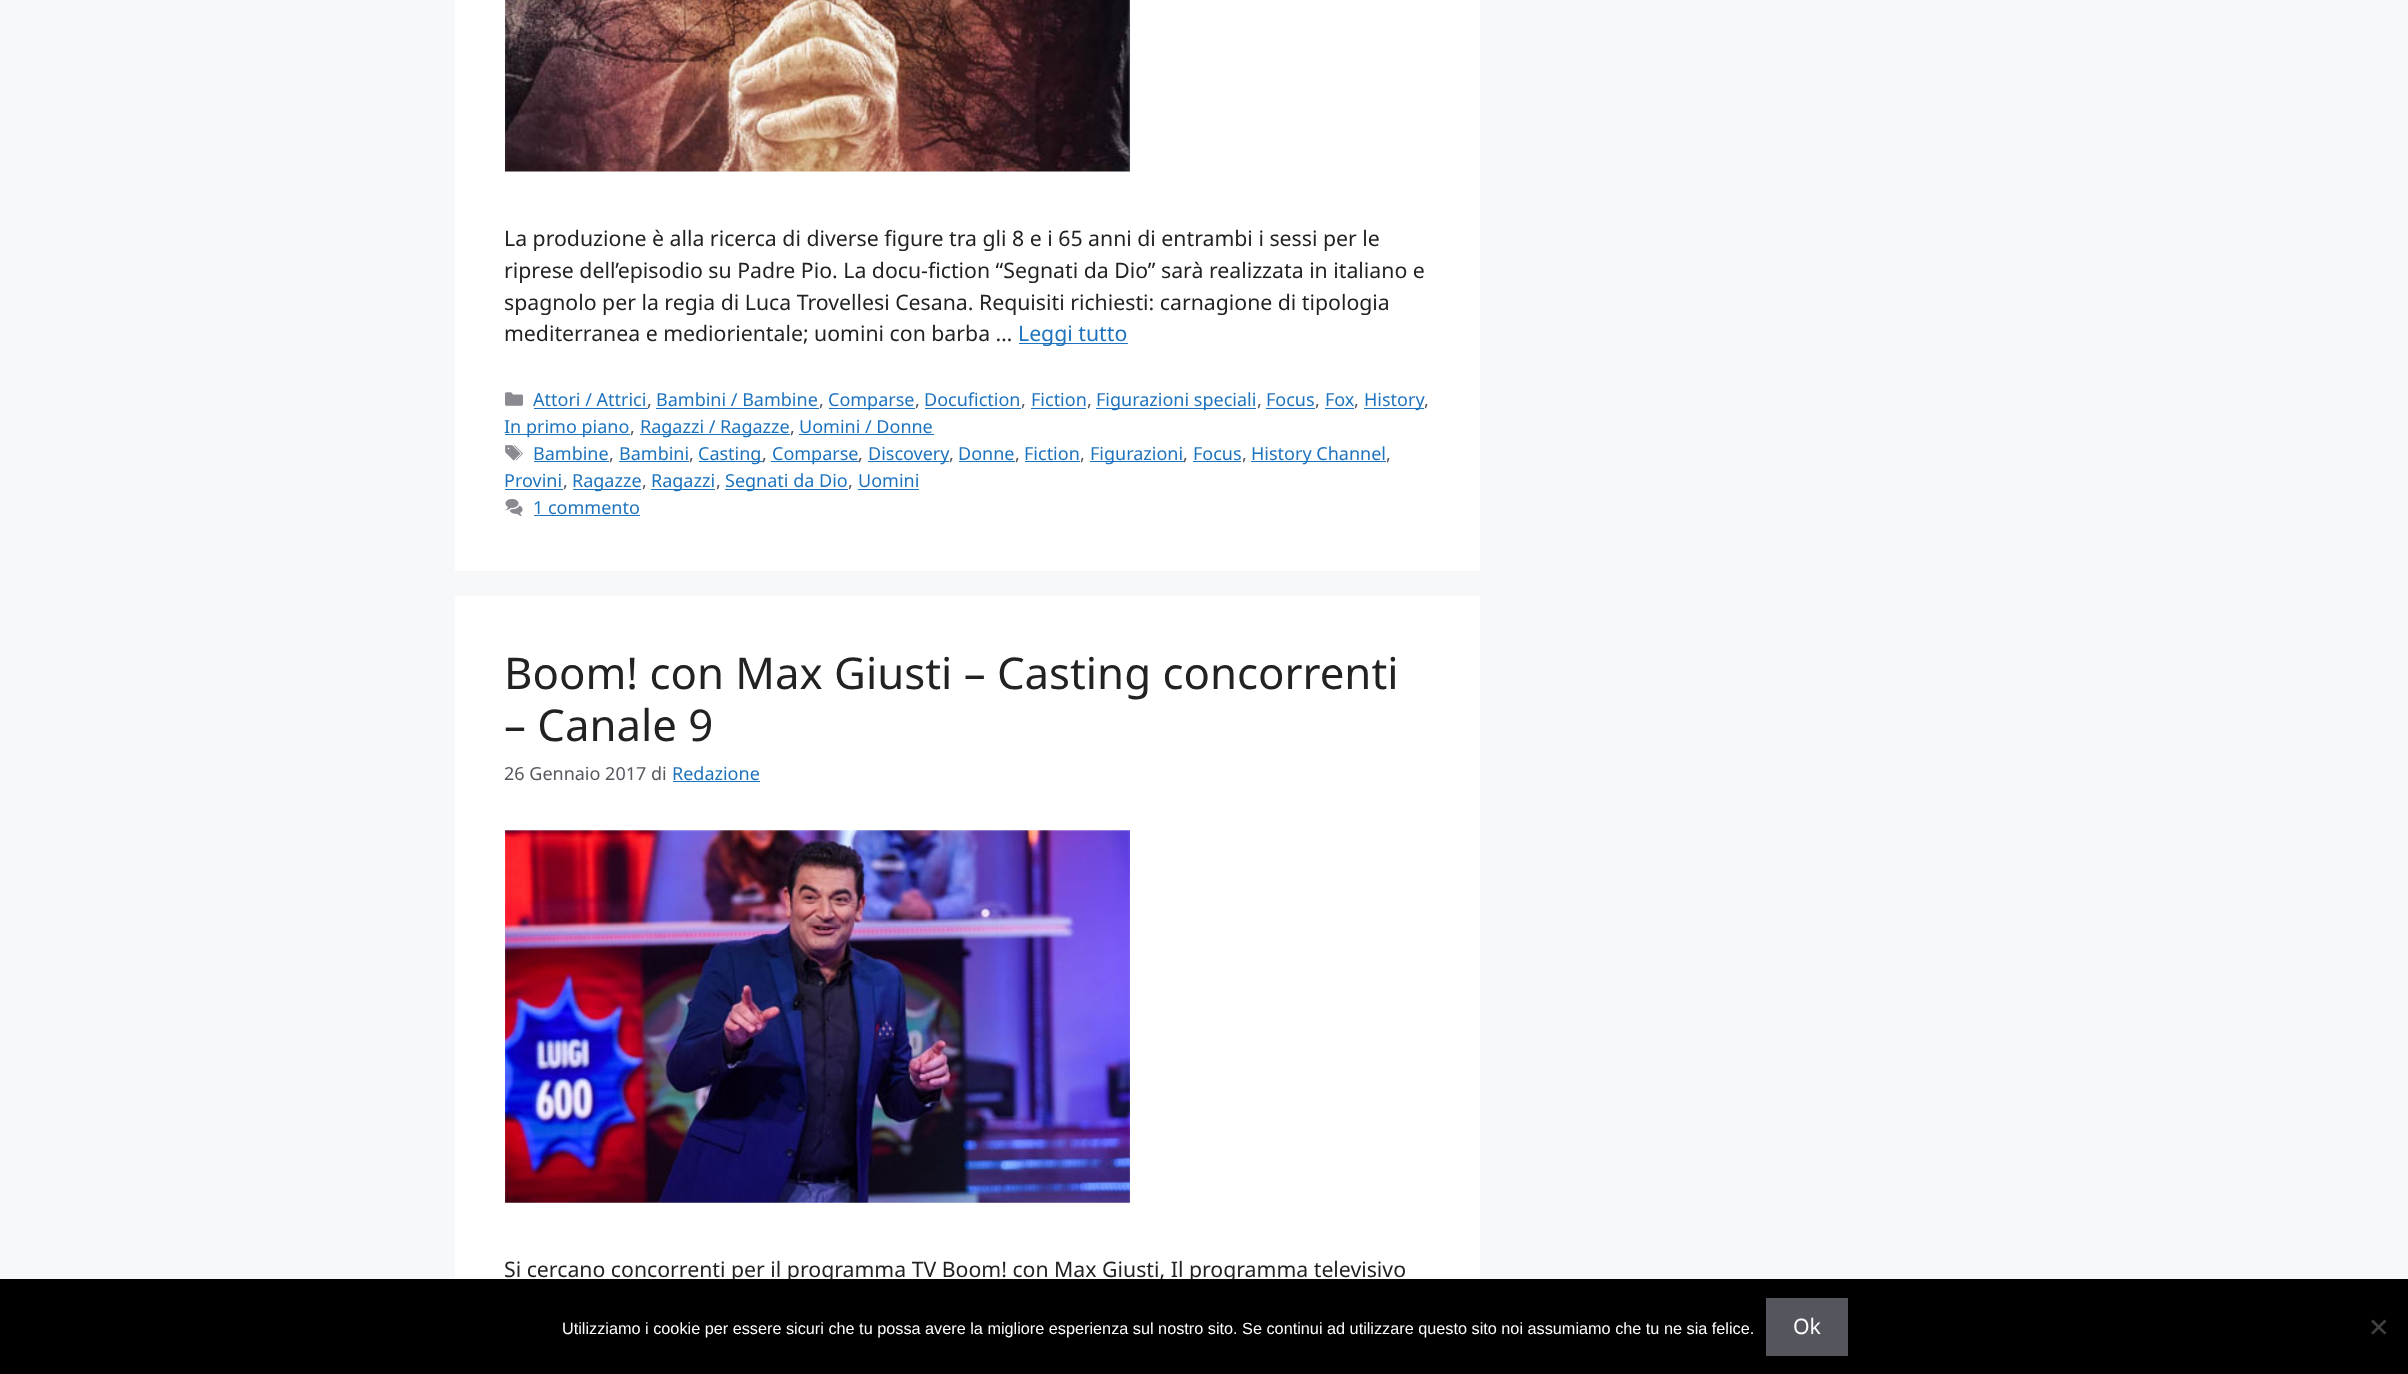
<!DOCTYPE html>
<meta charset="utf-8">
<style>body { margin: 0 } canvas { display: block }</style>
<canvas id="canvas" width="2408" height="1374"></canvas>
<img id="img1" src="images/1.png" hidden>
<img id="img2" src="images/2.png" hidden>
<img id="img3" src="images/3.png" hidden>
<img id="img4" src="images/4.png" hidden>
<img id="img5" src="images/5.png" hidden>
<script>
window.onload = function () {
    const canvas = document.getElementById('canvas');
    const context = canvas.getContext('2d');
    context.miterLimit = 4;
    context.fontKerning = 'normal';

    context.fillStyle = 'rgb(247, 248, 249)';
    context.fillRect(0, 0, 2408, 1374);
    context.fillStyle = 'rgb(255, 255, 255)';
    context.fillRect(455, 0, 1025, 571);
    context.drawImage(document.getElementById('img1'), 505, 0, 625, 172);
    context.fillStyle = 'rgb(30, 115, 190)';
    context.fillRect(1019, 343, 109, 1);
    context.drawImage(document.getElementById('img2'), 505, 392, 18, 14);
    context.fillRect(534, 408, 114, 1);
    context.fillRect(656, 408, 163, 1);
    context.fillRect(829, 408, 86, 1);
    context.fillRect(925, 408, 96, 1);
    context.fillRect(1031, 408, 55, 1);
    context.fillRect(1096, 408, 160, 1);
    context.fillRect(1266, 408, 49, 1);
    context.fillRect(1325, 408, 29, 1);
    context.fillRect(1364, 408, 60, 1);
    context.fillRect(505, 434, 125, 1);
    context.fillRect(640, 434, 150, 1);
    context.fillRect(799, 434, 135, 1);
    context.drawImage(document.getElementById('img3'), 505, 445, 18, 16);
    context.fillRect(534, 461, 75, 1);
    context.fillRect(619, 461, 70, 1);
    context.fillRect(699, 461, 64, 1);
    context.fillRect(771, 461, 88, 1);
    context.fillRect(868, 461, 81, 1);
    context.fillRect(959, 461, 56, 1);
    context.fillRect(1025, 461, 55, 1);
    context.fillRect(1090, 461, 94, 1);
    context.fillRect(1193, 461, 48, 1);
    context.fillRect(1251, 461, 135, 1);
    context.fillRect(505, 489, 58, 1);
    context.fillRect(573, 489, 68, 1);
    context.fillRect(651, 489, 64, 1);
    context.fillRect(725, 489, 123, 1);
    context.fillRect(858, 489, 61, 1);
    context.drawImage(document.getElementById('img4'), 505, 499, 18, 17);
    context.fillRect(534, 515, 106, 1);
    context.fillStyle = 'rgb(255, 255, 255)';
    context.fillRect(455, 596, 1025, 683);
    context.fillStyle = 'rgb(30, 115, 190)';
    context.fillRect(673, 781, 87, 1);
    context.drawImage(document.getElementById('img5'), 505, 830, 625, 373);
    context.font = '21.25px Noto Sans';
    context.fillStyle = 'rgb(34, 34, 34)';
    context.fillText('La produzione è alla ricerca di diverse figure tra gli 8 e i 65 anni di entrambi i sessi per le', 504, 246);
    context.fillText('riprese dell’episodio su Padre Pio. La docu-fiction “Segnati da Dio” sarà realizzata in italiano e', 504, 278);
    context.fillText('spagnolo per la regia di Luca Trovellesi Cesana. Requisiti richiesti: carnagione di tipologia', 504, 310);
    context.fillText('mediterranea e mediorientale; uomini con barba …', 504, 341);
    context.fillStyle = 'rgb(30, 115, 190)';
    context.fillText('Leggi tutto', 1018, 341);
    context.font = '18px Noto Sans';
    context.fillText('Attori / Attrici', 533, 406);
    context.fillStyle = 'rgb(87, 87, 96)';
    context.fillText(',', 647, 406);
    context.fillStyle = 'rgb(30, 115, 190)';
    context.fillText('Bambini / Bambine', 656, 406);
    context.fillStyle = 'rgb(87, 87, 96)';
    context.fillText(',', 819, 406);
    context.fillStyle = 'rgb(30, 115, 190)';
    context.fillText('Comparse', 828, 406);
    context.fillStyle = 'rgb(87, 87, 96)';
    context.fillText(',', 915, 406);
    context.fillStyle = 'rgb(30, 115, 190)';
    context.fillText('Docufiction', 924, 406);
    context.fillStyle = 'rgb(87, 87, 96)';
    context.fillText(',', 1021, 406);
    context.fillStyle = 'rgb(30, 115, 190)';
    context.fillText('Fiction', 1031, 406);
    context.fillStyle = 'rgb(87, 87, 96)';
    context.fillText(',', 1087, 406);
    context.fillStyle = 'rgb(30, 115, 190)';
    context.fillText('Figurazioni speciali', 1096, 406);
    context.fillStyle = 'rgb(87, 87, 96)';
    context.fillText(',', 1257, 406);
    context.fillStyle = 'rgb(30, 115, 190)';
    context.fillText('Focus', 1266, 406);
    context.fillStyle = 'rgb(87, 87, 96)';
    context.fillText(',', 1315, 406);
    context.fillStyle = 'rgb(30, 115, 190)';
    context.fillText('Fox', 1325, 406);
    context.fillStyle = 'rgb(87, 87, 96)';
    context.fillText(',', 1354, 406);
    context.fillStyle = 'rgb(30, 115, 190)';
    context.fillText('History', 1364, 406);
    context.fillStyle = 'rgb(87, 87, 96)';
    context.fillText(',', 1424, 406);
    context.fillStyle = 'rgb(30, 115, 190)';
    context.fillText('In primo piano', 504, 433);
    context.fillStyle = 'rgb(87, 87, 96)';
    context.fillText(',', 630, 433);
    context.fillStyle = 'rgb(30, 115, 190)';
    context.fillText('Ragazzi / Ragazze', 640, 433);
    context.fillStyle = 'rgb(87, 87, 96)';
    context.fillText(',', 790, 433);
    context.fillStyle = 'rgb(30, 115, 190)';
    context.fillText('Uomini / Donne', 799, 433);
    context.fillText('Bambine', 533, 460);
    context.fillStyle = 'rgb(87, 87, 96)';
    context.fillText(',', 609, 460);
    context.fillStyle = 'rgb(30, 115, 190)';
    context.fillText('Bambini', 619, 460);
    context.fillStyle = 'rgb(87, 87, 96)';
    context.fillText(',', 689, 460);
    context.fillStyle = 'rgb(30, 115, 190)';
    context.fillText('Casting', 698, 460);
    context.fillStyle = 'rgb(87, 87, 96)';
    context.fillText(',', 762, 460);
    context.fillStyle = 'rgb(30, 115, 190)';
    context.fillText('Comparse', 772, 460);
    context.fillStyle = 'rgb(87, 87, 96)';
    context.fillText(',', 858, 460);
    context.fillStyle = 'rgb(30, 115, 190)';
    context.fillText('Discovery', 868, 460);
    context.fillStyle = 'rgb(87, 87, 96)';
    context.fillText(',', 949, 460);
    context.fillStyle = 'rgb(30, 115, 190)';
    context.fillText('Donne', 958, 460);
    context.fillStyle = 'rgb(87, 87, 96)';
    context.fillText(',', 1015, 460);
    context.fillStyle = 'rgb(30, 115, 190)';
    context.fillText('Fiction', 1024, 460);
    context.fillStyle = 'rgb(87, 87, 96)';
    context.fillText(',', 1080, 460);
    context.fillStyle = 'rgb(30, 115, 190)';
    context.fillText('Figurazioni', 1090, 460);
    context.fillStyle = 'rgb(87, 87, 96)';
    context.fillText(',', 1183, 460);
    context.fillStyle = 'rgb(30, 115, 190)';
    context.fillText('Focus', 1193, 460);
    context.fillStyle = 'rgb(87, 87, 96)';
    context.fillText(',', 1242, 460);
    context.fillStyle = 'rgb(30, 115, 190)';
    context.fillText('History Channel', 1251, 460);
    context.fillStyle = 'rgb(87, 87, 96)';
    context.fillText(',', 1386, 460);
    context.fillStyle = 'rgb(30, 115, 190)';
    context.fillText('Provini', 504, 487);
    context.fillStyle = 'rgb(87, 87, 96)';
    context.fillText(',', 563, 487);
    context.fillStyle = 'rgb(30, 115, 190)';
    context.fillText('Ragazze', 572, 487);
    context.fillStyle = 'rgb(87, 87, 96)';
    context.fillText(',', 642, 487);
    context.fillStyle = 'rgb(30, 115, 190)';
    context.fillText('Ragazzi', 651, 487);
    context.fillStyle = 'rgb(87, 87, 96)';
    context.fillText(',', 716, 487);
    context.fillStyle = 'rgb(30, 115, 190)';
    context.fillText('Segnati da Dio', 725, 487);
    context.fillStyle = 'rgb(87, 87, 96)';
    context.fillText(',', 848, 487);
    context.fillStyle = 'rgb(30, 115, 190)';
    context.fillText('Uomini', 858, 487);
    context.fillText('1 commento', 533, 514);
    context.font = '43.75px Noto Sans';
    context.fillStyle = 'rgb(34, 34, 34)';
    context.fillText('Boom! con Max Giusti – Casting concorrenti', 504, 689);
    context.fillText('– Canale 9', 504, 741);
    context.font = '18px Noto Sans';
    context.fillStyle = 'rgb(87, 87, 96)';
    context.fillText('26 Gennaio 2017 di', 504, 780);
    context.fillStyle = 'rgb(30, 115, 190)';
    context.fillText('Redazione', 672, 780);
    context.font = '21.25px Noto Sans';
    context.fillStyle = 'rgb(34, 34, 34)';
    context.fillText('Si cercano concorrenti per il programma TV Boom! con Max Giusti, Il programma televisivo', 504, 1277);
    context.fillStyle = 'rgb(0, 0, 0)';
    context.fillRect(0, 1279, 2408, 95);
    context.font = '16.25px Liberation Sans';
    context.fillStyle = 'rgb(255, 255, 255)';
    context.fillText('Utilizziamo i cookie per essere sicuri che tu possa avere la migliore esperienza sul nostro sito. Se continui ad utilizzare questo sito noi assumiamo che tu ne sia felice.', 562, 1334);
    context.fillStyle = 'rgb(85, 85, 94)';
    context.fillRect(1766, 1298, 82, 58);
    context.font = '21.25px Noto Sans';
    context.fillStyle = 'rgb(255, 255, 255)';
    context.fillText('Ok', 1793, 1334);
    context.fillStyle = 'rgb(64, 64, 64)';
    context.beginPath();
    context.moveTo(2384.5, 1319.5);
    context.lineTo(2386.5, 1321.5);
    context.lineTo(2373, 1334.5);
    context.lineTo(2371, 1333);
    context.closePath();
    context.fill();
    context.beginPath();
    context.moveTo(2371, 1321.5);
    context.lineTo(2373, 1319.5);
    context.lineTo(2386.5, 1333);
    context.lineTo(2384.5, 1334.5);
    context.closePath();
    context.fill();
};
</script>
